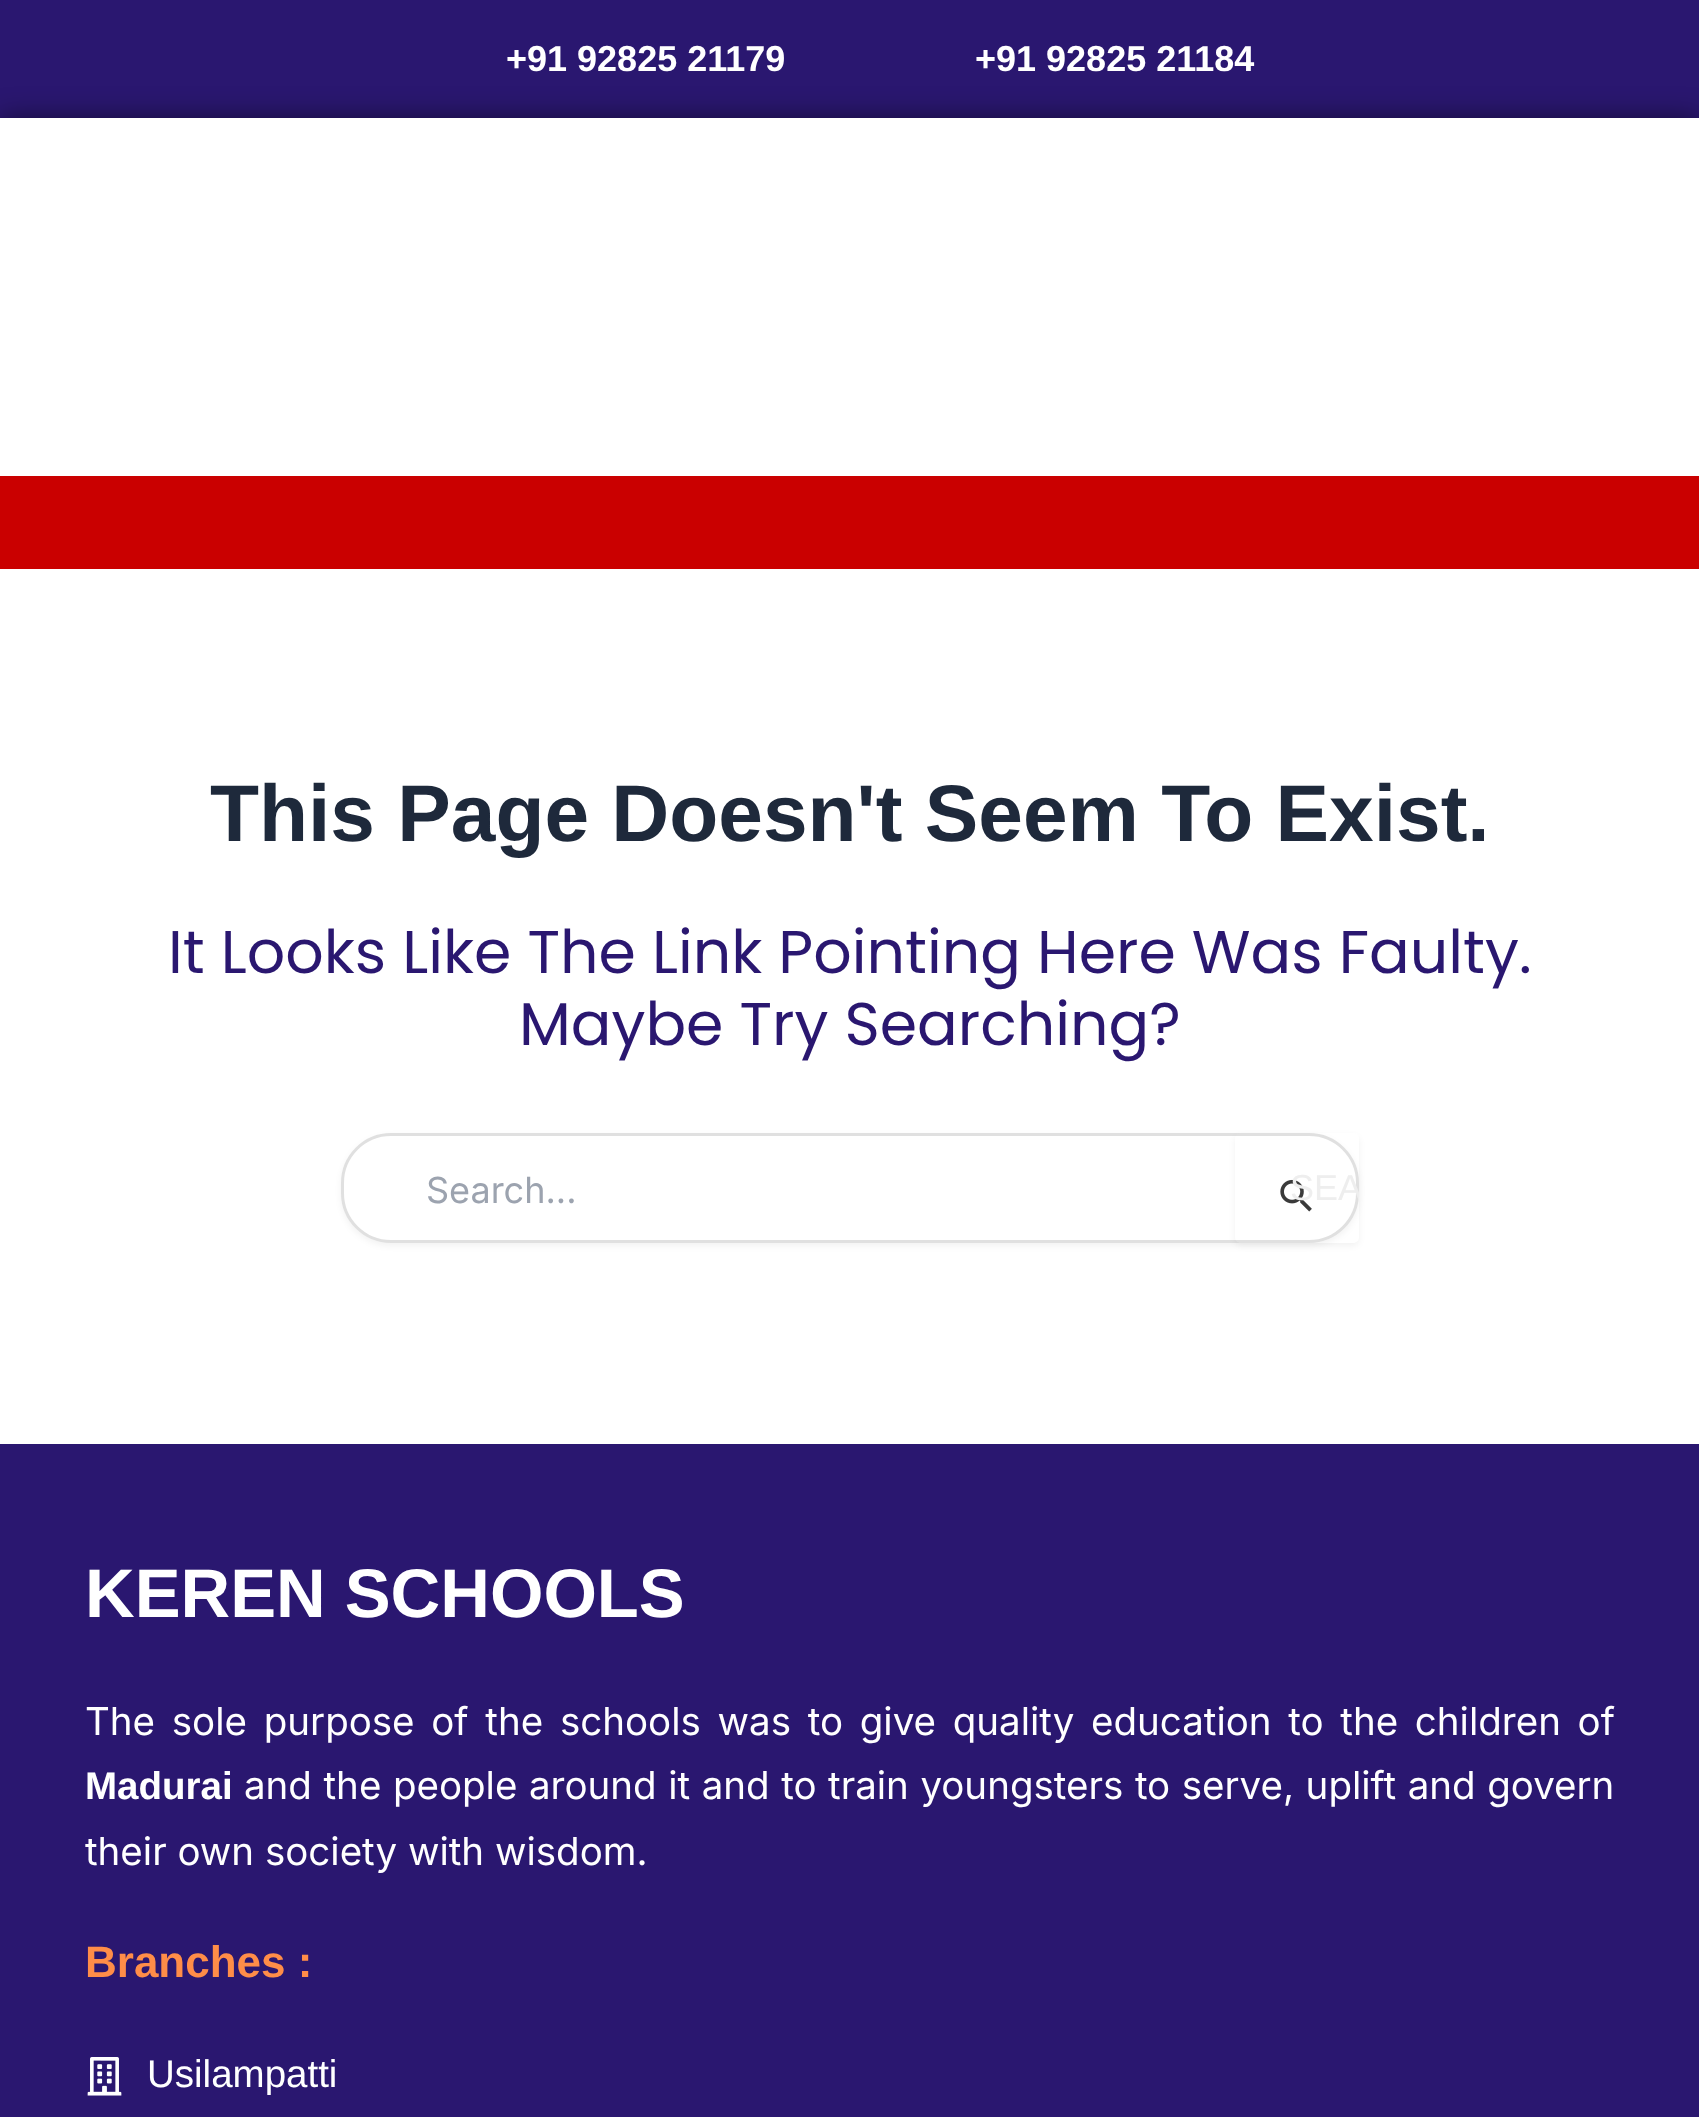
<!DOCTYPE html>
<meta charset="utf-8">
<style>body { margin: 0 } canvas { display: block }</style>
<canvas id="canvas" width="1699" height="2117"></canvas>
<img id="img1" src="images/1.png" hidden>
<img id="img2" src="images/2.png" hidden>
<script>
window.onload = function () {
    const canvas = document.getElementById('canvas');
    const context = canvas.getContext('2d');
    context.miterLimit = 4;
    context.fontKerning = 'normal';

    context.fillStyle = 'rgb(255, 255, 255)';
    context.fillRect(0, 0, 1699, 2117);
    context.fillStyle = 'rgb(42, 23, 112)';
    context.fillRect(0, 0, 1699, 118);
    context.fillStyle = 'rgba(0, 0, 0, 0.5)';
    context.filter = 'blur(14px)';
    context.beginPath();
    context.rect(0, 118, 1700, 358);
    context.fill();
    context.filter = 'none';
    context.fillStyle = 'rgb(255, 255, 255)';
    context.fillRect(0, 118, 1699, 358);
    context.fillStyle = 'rgb(202, 0, 0)';
    context.fillRect(0, 476, 1699, 93);
    context.fillStyle = 'rgba(0, 0, 0, 0.05)';
    context.filter = 'blur(3px)';
    context.beginPath();
    context.roundRect(341, 1136, 1018, 110, 50);
    context.fill();
    context.filter = 'none';
    context.fillStyle = 'rgb(255, 255, 255)';
    context.beginPath();
    context.roundRect(342.5, 1134.5, 1015, 107, 48.5);
    context.fill();
    context.strokeStyle = 'rgb(224, 224, 224)';
    context.lineWidth = 3;
    context.stroke();
    context.drawImage(document.getElementById('img1'), 1280, 1179, 32, 33);
    context.save();
    context.beginPath();
    context.moveTo(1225, 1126);
    context.lineTo(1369, 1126);
    context.lineTo(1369, 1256);
    context.lineTo(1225, 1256);
    context.closePath();
    context.moveTo(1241, 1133);
    context.lineTo(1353, 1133);
    context.bezierCurveTo(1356.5, 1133, 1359, 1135.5, 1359, 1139);
    context.lineTo(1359, 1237);
    context.bezierCurveTo(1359, 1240.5, 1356.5, 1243, 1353, 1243);
    context.lineTo(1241, 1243);
    context.bezierCurveTo(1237.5, 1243, 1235, 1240.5, 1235, 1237);
    context.lineTo(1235, 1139);
    context.bezierCurveTo(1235, 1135.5, 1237.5, 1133, 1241, 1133);
    context.closePath();
    context.clip('evenodd');
    context.fillStyle = 'rgba(0, 0, 0, 0.05)';
    context.filter = 'blur(3px)';
    context.beginPath();
    context.roundRect(1235, 1136, 124, 110, 6);
    context.fill();
    context.filter = 'none';
    context.restore();
    context.fillStyle = 'rgb(42, 23, 112)';
    context.fillRect(0, 1444, 1699, 673);
    context.drawImage(document.getElementById('img2'), 87, 2057, 35, 39);
    context.font = 'bold 36px Liberation Sans';
    context.fillStyle = 'rgb(255, 255, 255)';
    context.fillText('+91 92825 21179', 506, 71);
    context.fillText('+91 92825 21184', 975, 71);
    context.font = 'bold 80.25px Liberation Sans';
    context.fillStyle = 'rgb(30, 41, 59)';
    context.fillText('This Page Doesn\'t Seem To Exist.', 210, 841);
    context.font = '60.2px Poppins';
    context.fillStyle = 'rgb(42, 23, 112)';
    context.fillText('It Looks Like The Link Pointing Here Was Faulty.', 168, 973);
    context.fillText('Maybe Try Searching?', 519, 1045);
    context.font = '36px Inter';
    context.fillStyle = 'rgb(156, 163, 175)';
    context.fillText('Search...', 426, 1203);
    context.save();
    context.beginPath();
    context.roundRect(1235, 1133, 124, 110, 6);
    context.clip();
    context.font = '36px Liberation Sans';
    context.fillStyle = 'rgb(238, 238, 238)';
    context.fillText('SEA', 1290, 1200);
    context.restore();
    context.font = 'bold 68.75px Liberation Sans';
    context.fillStyle = 'rgb(255, 255, 255)';
    context.fillText('KEREN SCHOOLS', 85, 1617);
    context.wordSpacing = '5.9px';
    context.font = '38.5px Inter';
    context.fillText('The sole purpose of the schools was to give quality education to the children of', 85, 1735);
    context.wordSpacing = '0px';
    context.font = 'bold 38.5px Liberation Sans';
    context.fillText('Madurai', 85, 1799);
    context.wordSpacing = '0.75px';
    context.font = '38.5px Inter';
    context.fillText('and the people around it and to train youngsters to serve, uplift and govern', 244, 1799);
    context.wordSpacing = '0px';
    context.fillText('their own society with wisdom.', 85, 1865);
    context.font = 'bold 44px Liberation Sans';
    context.fillStyle = 'rgb(255, 141, 72)';
    context.fillText('Branches :', 85, 1977);
    context.font = '38.5px Liberation Sans';
    context.fillStyle = 'rgb(255, 255, 255)';
    context.fillText('Usilampatti', 147, 2087);
};
</script>
